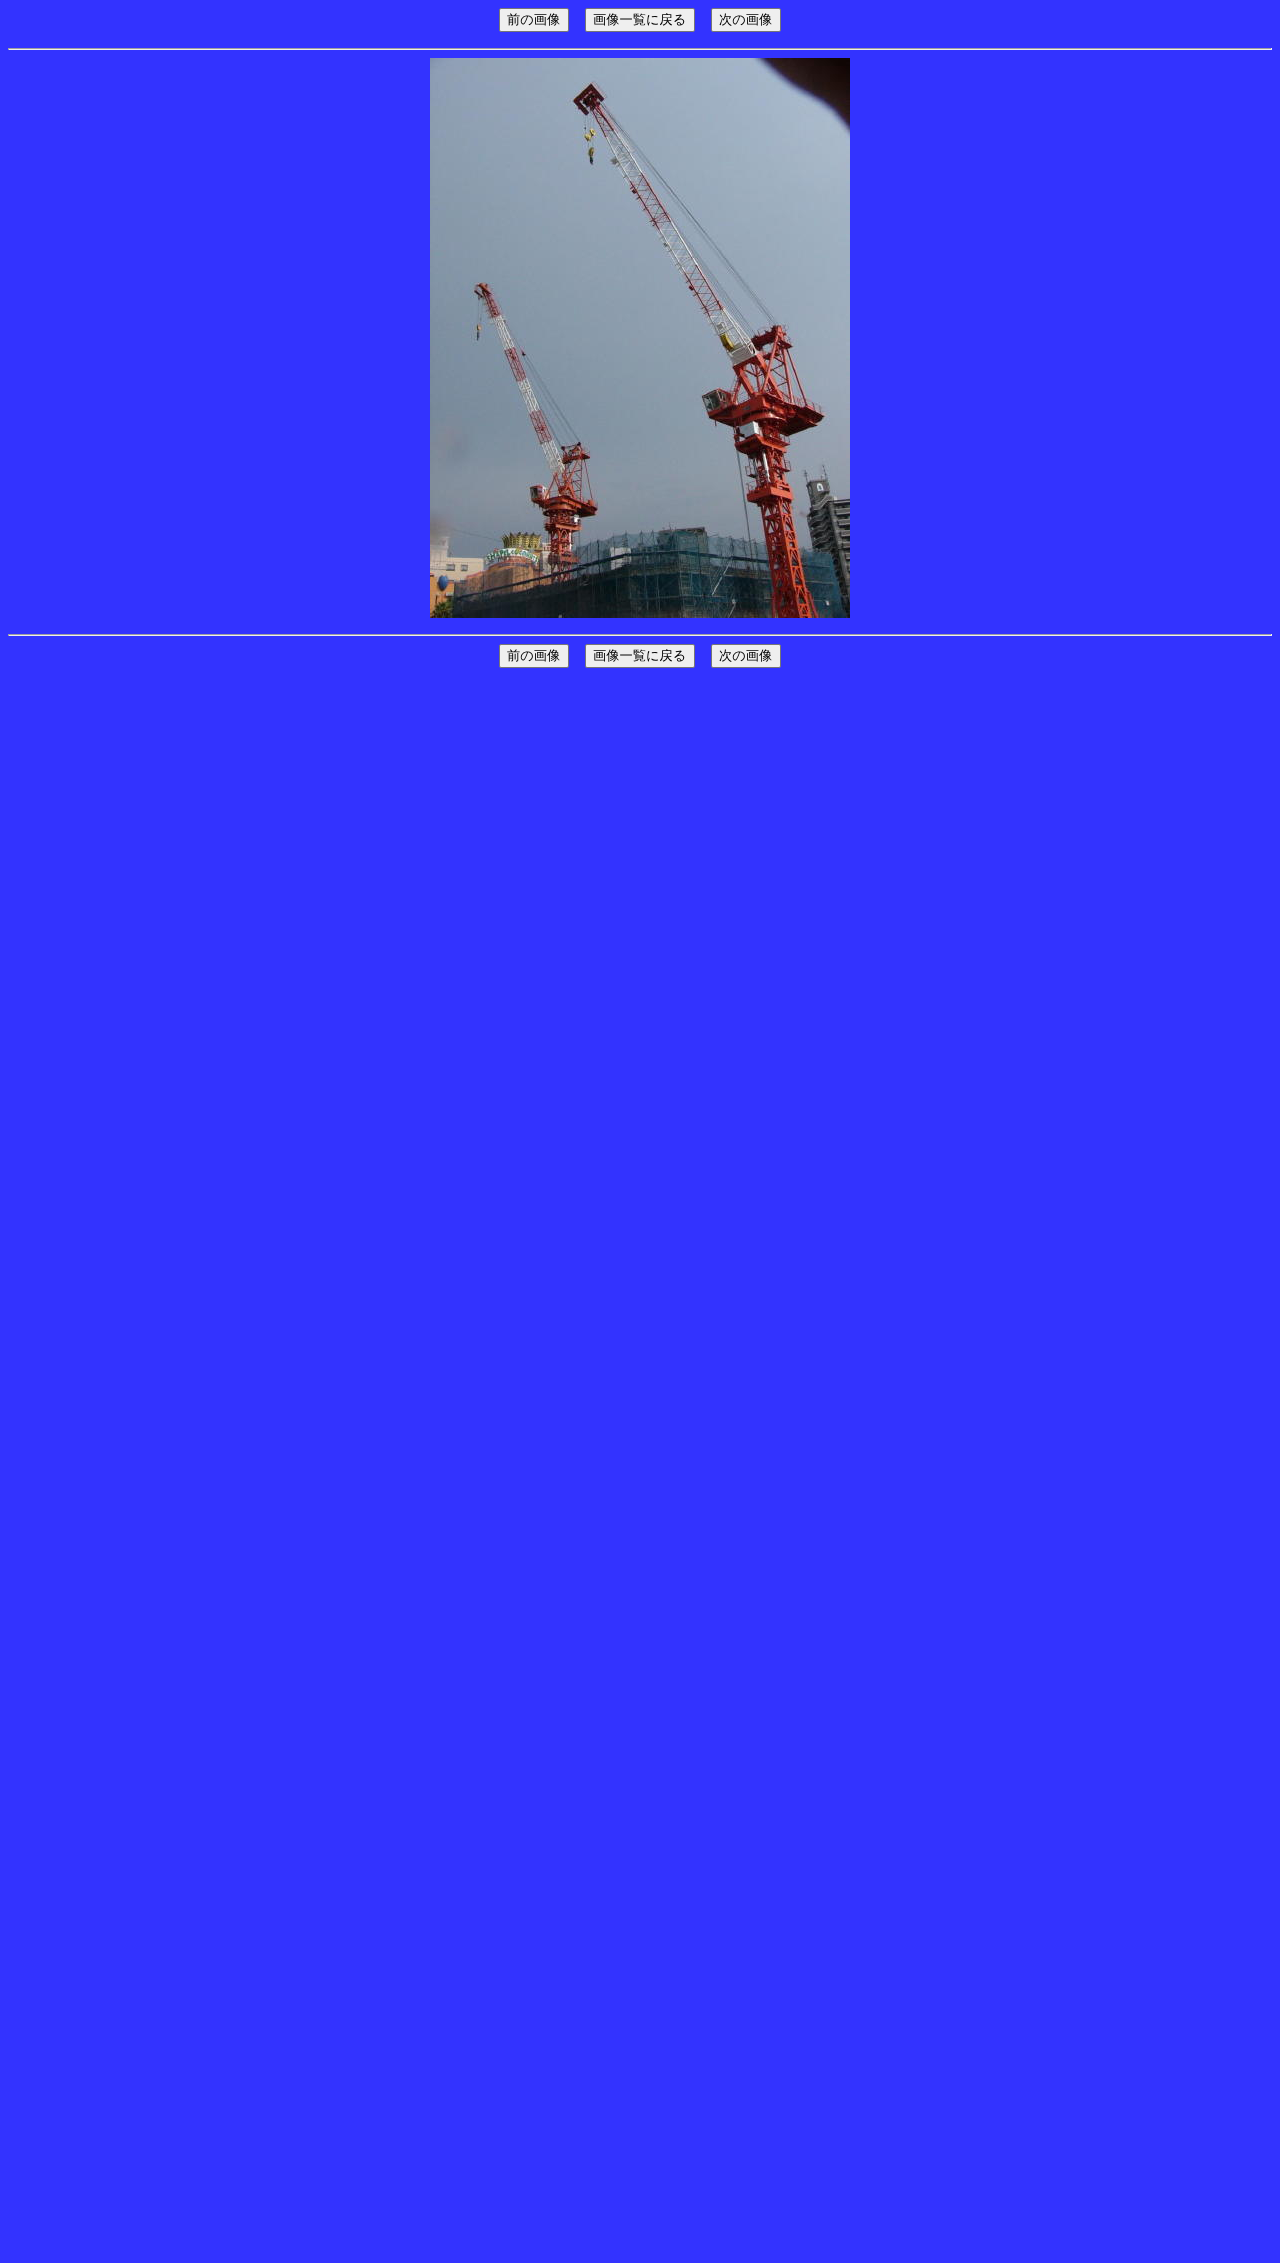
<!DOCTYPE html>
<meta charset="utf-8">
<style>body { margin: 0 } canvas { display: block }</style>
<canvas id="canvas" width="1280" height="2263"></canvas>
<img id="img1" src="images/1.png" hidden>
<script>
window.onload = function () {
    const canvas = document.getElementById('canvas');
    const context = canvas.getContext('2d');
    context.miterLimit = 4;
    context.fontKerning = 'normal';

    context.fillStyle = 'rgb(51, 51, 255)';
    context.fillRect(0, 0, 1280, 2263);
    context.fillStyle = 'rgb(239, 239, 239)';
    context.beginPath();
    context.roundRect(499.5, 8.5, 69, 23, 1.5);
    context.fill();
    context.strokeStyle = 'rgb(118, 118, 118)';
    context.stroke();
    context.beginPath();
    context.roundRect(585.5, 8.5, 109, 23, 1.5);
    context.fill();
    context.stroke();
    context.beginPath();
    context.roundRect(711.5, 8.5, 69, 23, 1.5);
    context.fill();
    context.stroke();
    context.fillStyle = 'rgb(159, 159, 159)';
    context.fillRect(8, 48, 1264, 1);
    context.fillStyle = 'rgb(238, 238, 238)';
    context.fillRect(1271, 48, 1, 2);
    context.fillRect(8, 49, 1264, 1);
    context.fillStyle = 'rgb(159, 159, 159)';
    context.fillRect(8, 48, 1, 2);
    context.drawImage(document.getElementById('img1'), 430, 58, 420, 560);
    context.fillRect(8, 634, 1264, 1);
    context.fillStyle = 'rgb(238, 238, 238)';
    context.fillRect(1271, 634, 1, 2);
    context.fillRect(8, 635, 1264, 1);
    context.fillStyle = 'rgb(159, 159, 159)';
    context.fillRect(8, 634, 1, 2);
    context.fillStyle = 'rgb(239, 239, 239)';
    context.beginPath();
    context.roundRect(499.5, 644.5, 69, 23, 1.5);
    context.fill();
    context.stroke();
    context.beginPath();
    context.roundRect(585.5, 644.5, 109, 23, 1.5);
    context.fill();
    context.stroke();
    context.beginPath();
    context.roundRect(711.5, 644.5, 69, 23, 1.5);
    context.fill();
    context.stroke();
    context.font = '500 13.25px WenQuanYi Zen Hei';
    context.fillStyle = 'rgb(0, 0, 0)';
    context.fillText('前の画像', 507, 24);
    context.fillText('画像一覧に戻る', 593, 24);
    context.fillText('次の画像', 719, 24);
    context.fillText('前の画像', 507, 660);
    context.fillText('画像一覧に戻る', 593, 660);
    context.fillText('次の画像', 719, 660);
};
</script>
